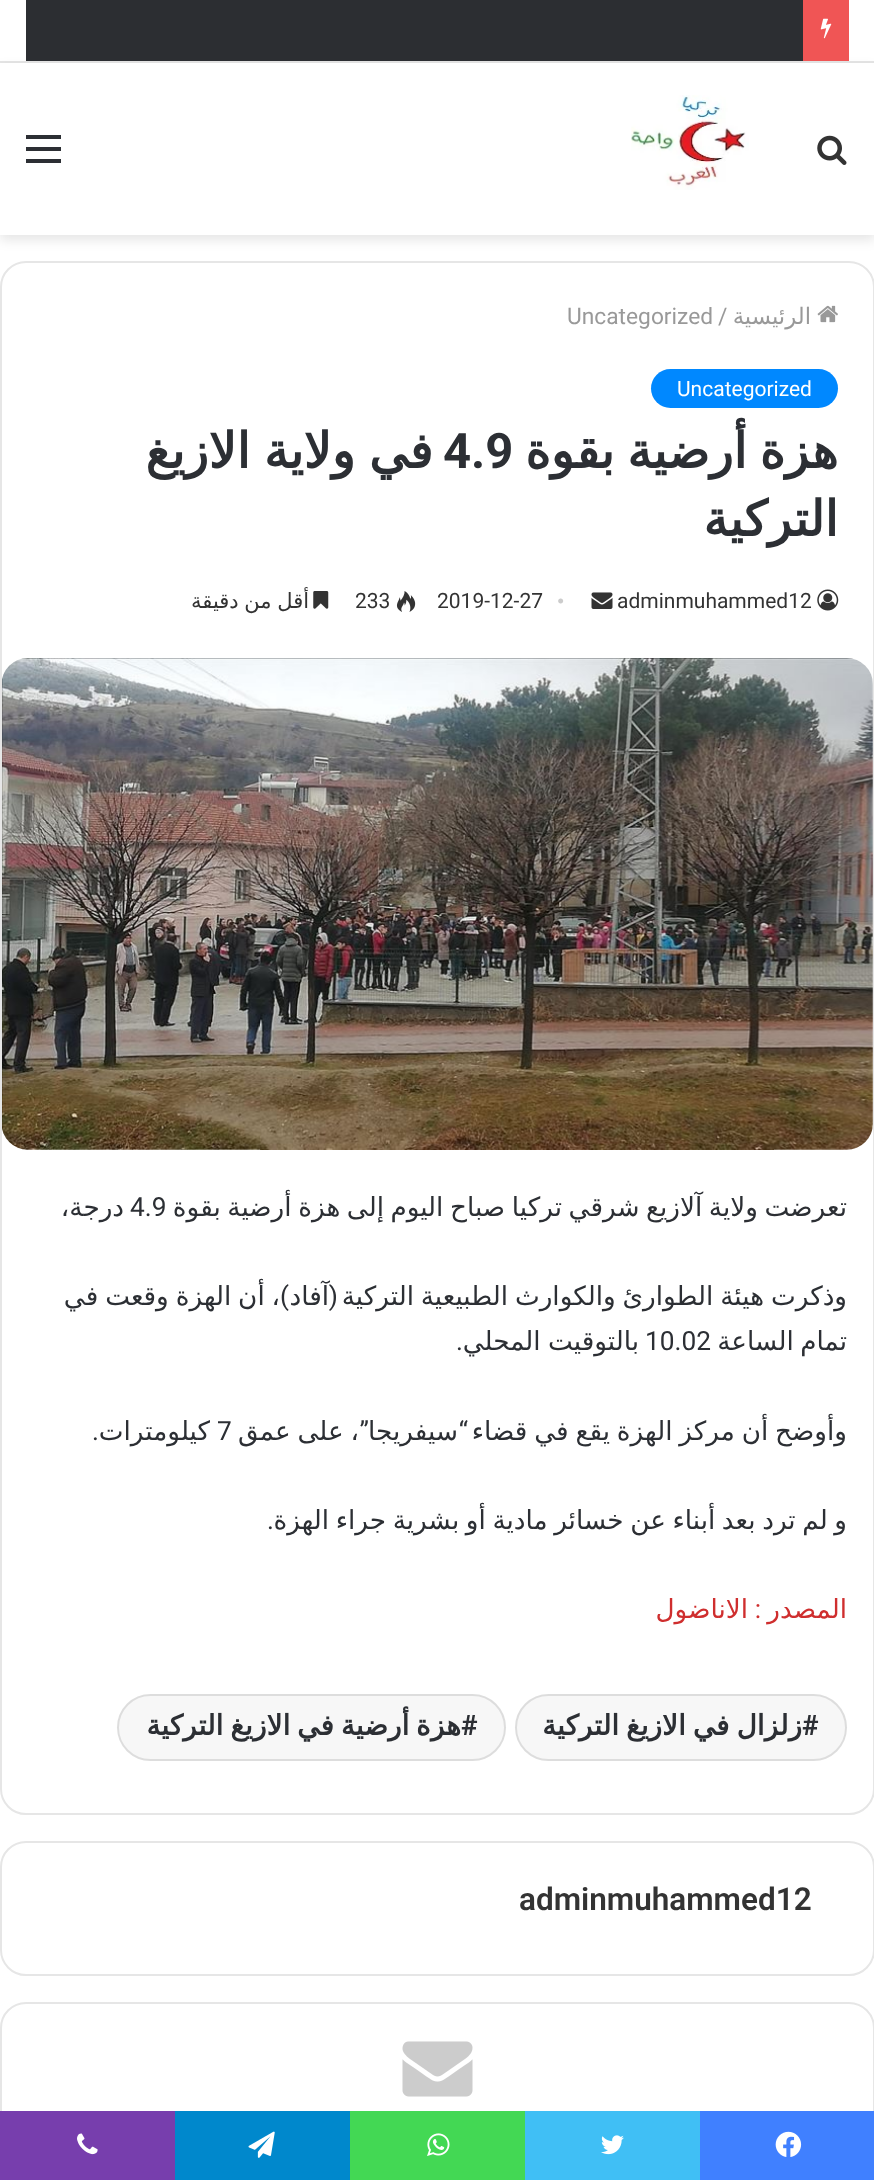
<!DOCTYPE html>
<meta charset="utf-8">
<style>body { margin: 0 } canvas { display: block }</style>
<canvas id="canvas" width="874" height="2180"></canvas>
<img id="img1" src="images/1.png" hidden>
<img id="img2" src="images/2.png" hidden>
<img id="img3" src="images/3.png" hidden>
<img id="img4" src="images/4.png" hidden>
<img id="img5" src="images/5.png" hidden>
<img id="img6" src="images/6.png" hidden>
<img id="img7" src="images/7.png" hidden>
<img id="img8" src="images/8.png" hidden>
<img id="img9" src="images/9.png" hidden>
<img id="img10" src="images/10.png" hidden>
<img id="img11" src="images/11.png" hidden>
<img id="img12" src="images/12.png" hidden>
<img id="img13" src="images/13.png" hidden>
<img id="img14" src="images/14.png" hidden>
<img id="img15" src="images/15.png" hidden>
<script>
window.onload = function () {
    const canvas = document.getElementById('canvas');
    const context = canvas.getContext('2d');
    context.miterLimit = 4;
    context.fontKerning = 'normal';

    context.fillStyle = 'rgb(255, 255, 255)';
    context.fillRect(0, 0, 874, 2180);
    context.fillStyle = 'rgba(0, 0, 0, 0.1)';
    context.filter = 'blur(6px)';
    context.beginPath();
    context.rect(0, 68, 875, 172);
    context.fill();
    context.filter = 'none';
    context.fillRect(0, 61, 874, 2);
    context.fillStyle = 'rgb(44, 46, 50)';
    context.fillRect(26, 0, 777, 61);
    context.fillStyle = 'rgb(240, 85, 85)';
    context.fillRect(803, 0, 46, 61);
    context.drawImage(document.getElementById('img1'), 820, 18, 12, 21);
    context.fillStyle = 'rgb(255, 255, 255)';
    context.fillRect(0, 63, 874, 172);
    context.drawImage(document.getElementById('img2'), 817, 135, 30, 30);
    context.drawImage(document.getElementById('img3'), 631, 95, 118, 95);
    context.fillStyle = 'rgb(44, 47, 52)';
    context.fillRect(26, 147, 35, 4);
    context.fillRect(26, 135, 35, 4);
    context.fillRect(26, 159, 35, 4);
    context.beginPath();
    context.roundRect(1, 262, 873, 1552, 25);
    context.strokeStyle = 'rgb(230, 230, 230)';
    context.lineWidth = 2;
    context.stroke();
    context.drawImage(document.getElementById('img4'), 817, 305, 21, 18);
    context.fillStyle = 'rgb(0, 136, 255)';
    context.beginPath();
    context.roundRect(651, 369, 187, 39, 19.5);
    context.fill();
    context.drawImage(document.getElementById('img5'), 817, 589, 22, 22);
    context.drawImage(document.getElementById('img6'), 591, 592, 22, 17);
    context.drawImage(document.getElementById('img7'), 396, 591, 20, 21);
    context.drawImage(document.getElementById('img8'), 313, 591, 16, 18);
    context.drawImage(document.getElementById('img9'), 2, 658, 871, 492);
    context.fillStyle = 'rgb(247, 247, 247)';
    context.beginPath();
    context.roundRect(515, 1694, 332, 67, 33.5);
    context.fill();
    context.beginPath();
    context.roundRect(516, 1695, 330, 65, 32.5);
    context.strokeStyle = 'rgba(0, 0, 0, 0.1)';
    context.stroke();
    context.beginPath();
    context.roundRect(117, 1694, 389, 67, 33.5);
    context.fill();
    context.beginPath();
    context.roundRect(118, 1695, 387, 65, 32.5);
    context.stroke();
    context.beginPath();
    context.roundRect(1, 1842, 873, 133, 25);
    context.strokeStyle = 'rgb(230, 230, 230)';
    context.stroke();
    context.beginPath();
    context.roundRect(1, 2003, 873, 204, 25);
    context.stroke();
    context.drawImage(document.getElementById('img10'), 402, 2041, 71, 56);
    context.fillStyle = 'rgb(64, 128, 255)';
    context.fillRect(700, 2111, 174, 69);
    context.drawImage(document.getElementById('img11'), 775, 2131, 27, 26);
    context.fillStyle = 'rgb(64, 191, 245)';
    context.fillRect(525, 2111, 175, 69);
    context.drawImage(document.getElementById('img12'), 601, 2135, 23, 20);
    context.fillStyle = 'rgb(67, 216, 84)';
    context.fillRect(350, 2111, 175, 69);
    context.drawImage(document.getElementById('img13'), 427, 2133, 23, 23);
    context.fillStyle = 'rgb(0, 136, 204)';
    context.fillRect(175, 2111, 175, 69);
    context.drawImage(document.getElementById('img14'), 248, 2131, 27, 27);
    context.fillStyle = 'rgb(119, 62, 173)';
    context.fillRect(0, 2111, 175, 69);
    context.drawImage(document.getElementById('img15'), 77, 2133, 21, 22);
    context.direction = 'rtl';
    context.font = '22.75px DejaVu Sans';
    context.fillStyle = 'rgb(153, 153, 153)';
    context.fillText('الرئيسية', 811, 324);
    context.direction = 'ltr';
    context.font = '22.75px Roboto';
    context.fillText('/', 718, 324);
    context.fillText('Uncategorized', 567, 324);
    context.font = '21px Roboto';
    context.fillStyle = 'rgb(255, 255, 255)';
    context.fillText('Uncategorized', 677, 396);
    context.wordSpacing = '-3px';
    context.direction = 'rtl';
    context.font = 'bold 49px DejaVu Sans';
    context.fillStyle = 'rgb(44, 47, 52)';
    context.fillText('هزة أرضية بقوة', 838, 468);
    context.wordSpacing = '0px';
    context.direction = 'ltr';
    context.font = 'bold 49px Roboto';
    context.fillText('4.9', 443, 468);
    context.wordSpacing = '-2px';
    context.direction = 'rtl';
    context.font = 'bold 49px DejaVu Sans';
    context.fillText('في ولاية الازيغ', 433, 468);
    context.wordSpacing = '0px';
    context.fillText('التركية', 838, 536);
    context.direction = 'ltr';
    context.font = '21px Roboto';
    context.fillStyle = 'rgb(51, 51, 51)';
    context.fillText('adminmuhammed12', 617, 608);
    context.font = '21px Liberation Serif';
    context.fillStyle = 'rgb(204, 204, 204)';
    context.fillText('•', 557, 608);
    context.font = '21px Roboto';
    context.fillStyle = 'rgb(51, 51, 51)';
    context.fillText('2019-12-27', 437, 608);
    context.fillText('233', 355, 608);
    context.wordSpacing = '-1px';
    context.direction = 'rtl';
    context.font = '21px DejaVu Sans';
    context.fillText('أقل من دقيقة', 309, 608);
    context.wordSpacing = '-1.75px';
    context.font = '26.25px DejaVu Sans';
    context.fillStyle = 'rgb(44, 47, 52)';
    context.fillText('تعرضت ولاية آلازيع شرقي تركيا صباح اليوم', 847, 1216);
    context.fillText('إلى هزة أرضية بقوة', 384, 1216);
    context.wordSpacing = '0px';
    context.direction = 'ltr';
    context.font = '26.25px Roboto';
    context.fillText('4.9', 130, 1216);
    context.direction = 'rtl';
    context.font = '26.25px DejaVu Sans';
    context.fillText('درجة،', 124, 1216);
    context.fillText('آفاد', 329, 1305);
    context.wordSpacing = '-1.5px';
    context.fillText('، أن الهزة وقعت في', 280, 1305);
    context.wordSpacing = '0px';
    context.fillText('وذكرت', 847, 1305);
    context.wordSpacing = '-1.5px';
    context.fillText('هيئة الطوارئ والكوارث الطبيعية التركية', 764, 1305);
    context.wordSpacing = '0px';
    context.font = '26.25px Roboto';
    context.fillText('(', 338, 1305);
    context.fillText(')', 289, 1305);
    context.wordSpacing = '-1.75px';
    context.font = '26.25px DejaVu Sans';
    context.fillText('تمام الساعة', 847, 1350);
    context.wordSpacing = '0px';
    context.direction = 'ltr';
    context.font = '26.25px Roboto';
    context.fillText('10.02', 645, 1350);
    context.wordSpacing = '-1px';
    context.direction = 'rtl';
    context.font = '26.25px DejaVu Sans';
    context.fillText('بالتوقيت المحلي', 639, 1350);
    context.wordSpacing = '0px';
    context.font = '26.25px Roboto';
    context.fillText('.', 463, 1350);
    context.wordSpacing = '-1.5px';
    context.font = '26.25px DejaVu Sans';
    context.fillText('وأوضح أن مركز الهزة يقع في قضاء', 847, 1440);
    context.wordSpacing = '0px';
    context.font = '26.25px Roboto';
    context.fillText('“', 468, 1440);
    context.font = '26.25px DejaVu Sans';
    context.fillText('سيفريجا', 458, 1440);
    context.wordSpacing = '-1.5px';
    context.fillText('، على عمق', 359, 1440);
    context.wordSpacing = '0px';
    context.font = '26.25px Roboto';
    context.fillText('”', 369, 1440);
    context.direction = 'ltr';
    context.fillText('7', 217, 1440);
    context.direction = 'rtl';
    context.font = '26.25px DejaVu Sans';
    context.fillText('كيلومترات', 210, 1440);
    context.font = '26.25px Roboto';
    context.fillText('.', 99, 1440);
    context.wordSpacing = '-1.75px';
    context.font = '26.25px DejaVu Sans';
    context.fillText('و لم ترد بعد أبناء عن خسائر مادية أو بشرية جراء الهزة', 847, 1529);
    context.wordSpacing = '0px';
    context.font = '26.25px Roboto';
    context.fillText('.', 274, 1529);
    context.font = '26.25px DejaVu Sans';
    context.fillStyle = 'rgb(207, 46, 46)';
    context.fillText('المصدر', 847, 1618);
    context.font = '26.25px Roboto';
    context.fillText(':', 761, 1618);
    context.font = '26.25px DejaVu Sans';
    context.fillText('الاناضول', 748, 1618);
    context.direction = 'ltr';
    context.font = 'bold 28px Roboto';
    context.fillStyle = 'rgb(44, 47, 52)';
    context.fillText('#', 802, 1735);
    context.wordSpacing = '-2px';
    context.direction = 'rtl';
    context.font = 'bold 28px DejaVu Sans';
    context.fillText('زلزال في الازيغ التركية', 802, 1735);
    context.wordSpacing = '0px';
    context.direction = 'ltr';
    context.font = 'bold 28px Roboto';
    context.fillText('#', 461, 1735);
    context.wordSpacing = '-2px';
    context.direction = 'rtl';
    context.font = 'bold 28px DejaVu Sans';
    context.fillText('هزة أرضية في الازيغ التركية', 461, 1735);
    context.wordSpacing = '0px';
    context.direction = 'ltr';
    context.font = '600 31.5px Roboto';
    context.fillStyle = 'rgb(51, 51, 51)';
    context.fillText('adminmuhammed12', 519, 1910);
};
</script>
